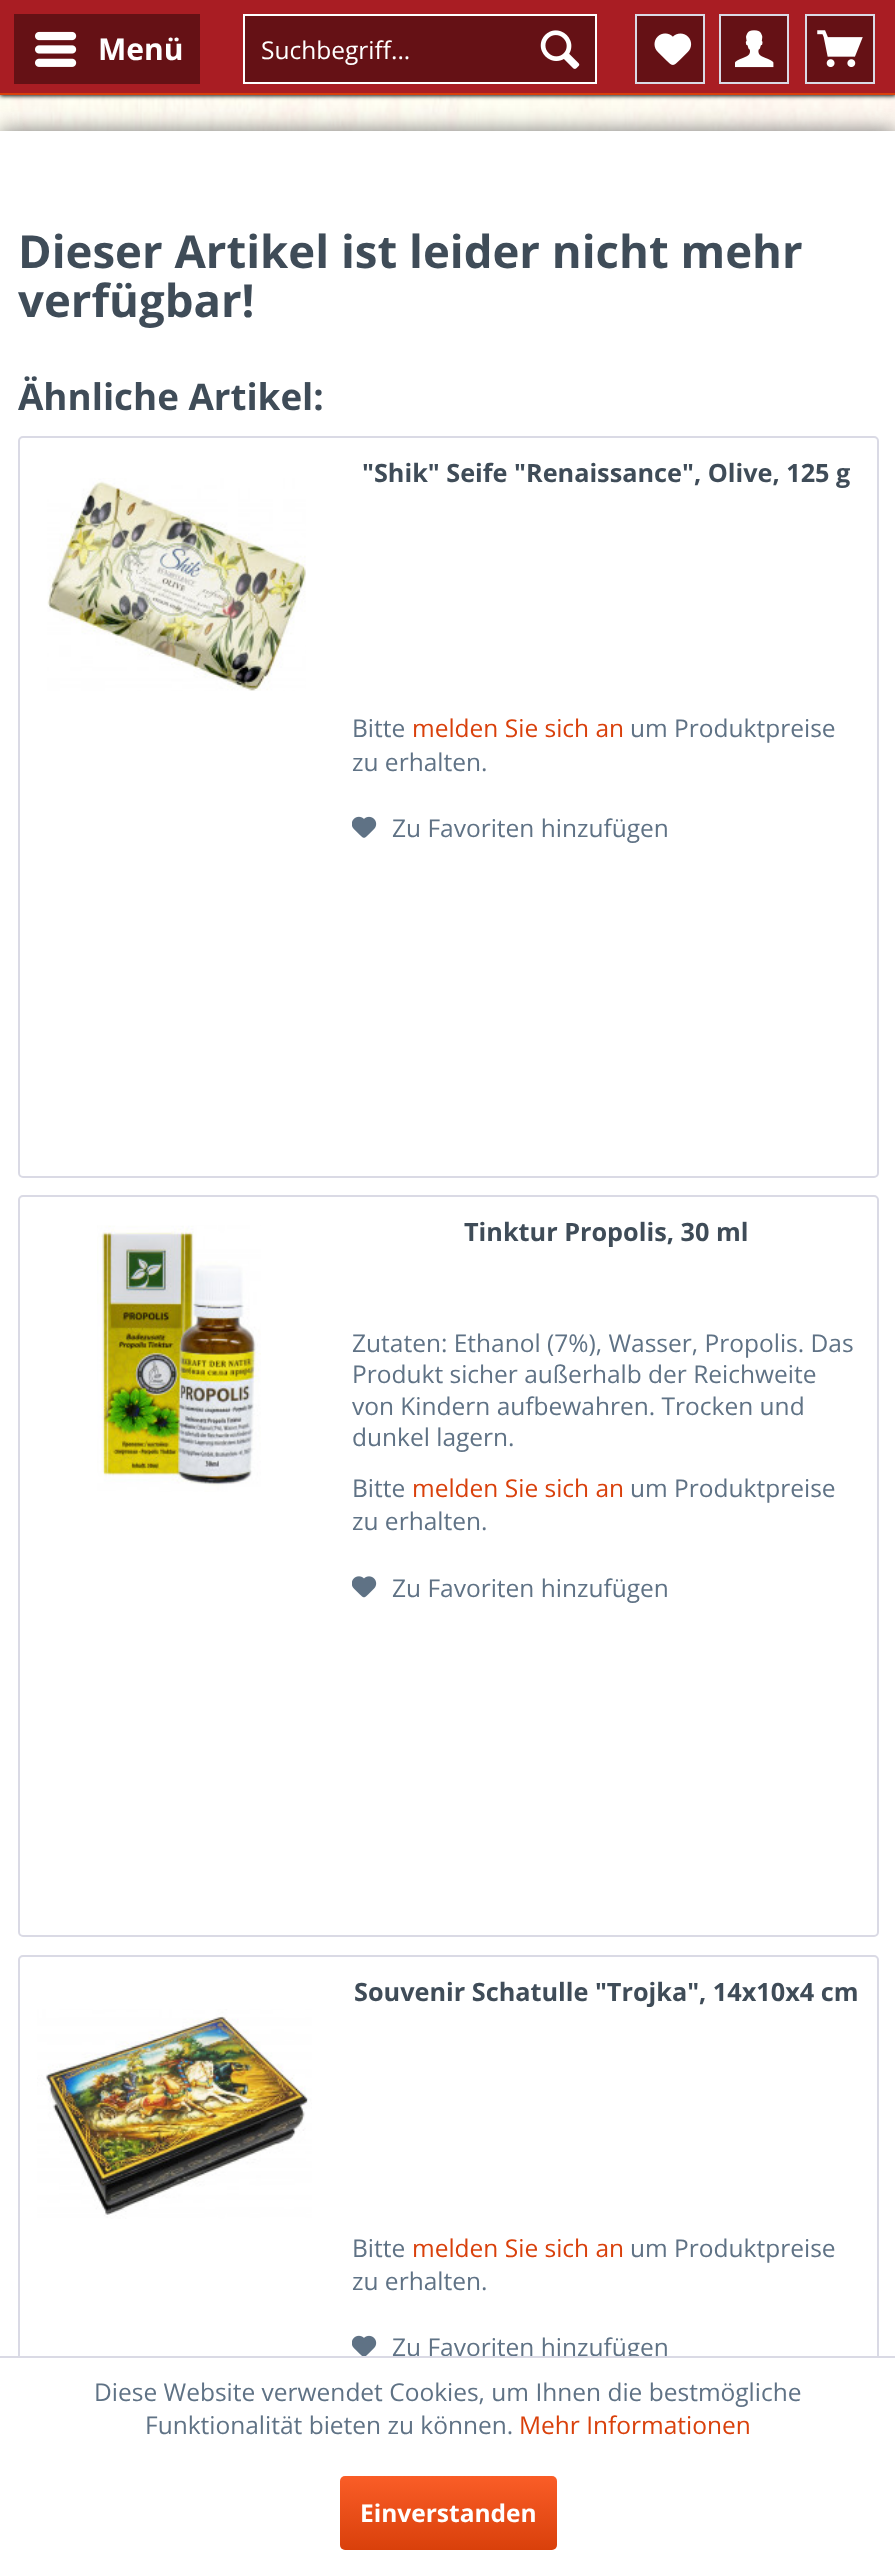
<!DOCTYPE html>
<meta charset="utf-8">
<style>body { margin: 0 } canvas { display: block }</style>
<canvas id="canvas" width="895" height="2566"></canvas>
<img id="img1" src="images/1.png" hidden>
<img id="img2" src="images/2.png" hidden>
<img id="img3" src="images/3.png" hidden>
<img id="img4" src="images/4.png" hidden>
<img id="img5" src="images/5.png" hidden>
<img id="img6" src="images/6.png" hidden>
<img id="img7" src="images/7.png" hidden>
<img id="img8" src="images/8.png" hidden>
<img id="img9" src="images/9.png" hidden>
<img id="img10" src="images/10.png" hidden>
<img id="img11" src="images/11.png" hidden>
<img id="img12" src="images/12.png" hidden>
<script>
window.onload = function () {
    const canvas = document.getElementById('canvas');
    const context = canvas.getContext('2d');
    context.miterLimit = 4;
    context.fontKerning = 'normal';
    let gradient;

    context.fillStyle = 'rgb(255, 255, 255)';
    context.fillRect(0, 0, 895, 2566);
    context.drawImage(document.getElementById('img1'), 0, 95, 895, 36);
    context.fillStyle = 'rgb(17, 17, 17)';
    context.filter = 'blur(2px)';
    context.beginPath();
    context.rect(0, 2, 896, 94);
    context.fill();
    context.filter = 'none';
    context.fillStyle = 'rgb(169, 29, 35)';
    context.fillRect(0, 0, 895, 93);
    context.fillStyle = 'rgb(217, 64, 11)';
    context.fillRect(0, 93, 895, 2);
    context.fillStyle = 'rgb(101, 17, 21)';
    context.fillRect(14, 14, 186, 70);
    context.drawImage(document.getElementById('img2'), 35, 31, 42, 36);
    context.beginPath();
    context.rect(244, 15, 352, 68);
    context.fill();
    context.strokeStyle = 'rgb(255, 255, 255)';
    context.lineWidth = 2;
    context.stroke();
    context.drawImage(document.getElementById('img3'), 540, 30, 40, 39);
    context.beginPath();
    context.rect(636, 15, 68, 68);
    context.fill();
    context.strokeStyle = 'rgb(218, 218, 229)';
    context.stroke();
    context.drawImage(document.getElementById('img4'), 654, 33, 38, 32);
    context.beginPath();
    context.rect(720, 15, 68, 68);
    context.fill();
    context.stroke();
    context.drawImage(document.getElementById('img5'), 735, 30, 39, 38);
    context.beginPath();
    context.rect(806, 15, 68, 68);
    context.fill();
    context.stroke();
    context.drawImage(document.getElementById('img6'), 817, 30, 46, 37);
    context.fillStyle = 'rgb(119, 119, 119)';
    context.filter = 'blur(10.5px)';
    context.beginPath();
    context.rect(0, 131, 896, 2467);
    context.fill();
    context.filter = 'none';
    context.fillStyle = 'rgb(255, 255, 255)';
    context.fillRect(0, 131, 895, 2225);
    context.beginPath();
    context.roundRect(19, 437, 859, 740, 4);
    context.stroke();
    context.drawImage(document.getElementById('img7'), 47, 478, 259, 213);
    context.drawImage(document.getElementById('img8'), 352, 816, 25, 22);
    context.beginPath();
    context.roundRect(19, 1196, 859, 740, 4);
    context.stroke();
    context.drawImage(document.getElementById('img9'), 97, 1225, 164, 267);
    context.drawImage(document.getElementById('img10'), 352, 1576, 25, 22);
    context.beginPath();
    context.roundRect(19, 1956, 859, 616, 4);
    context.stroke();
    context.drawImage(document.getElementById('img11'), 37, 2009, 275, 210);
    context.drawImage(document.getElementById('img12'), 352, 2335, 25, 21);
    context.font = 'bold 30px Open Sans';
    context.fillText('Menü', 98, 60);
    context.font = '24.5px Open Sans';
    context.fillText('Suchbegriff...', 261, 59);
    context.font = 'bold 45.5px Open Sans';
    context.fillStyle = 'rgb(63, 76, 88)';
    context.fillText('Dieser Artikel ist leider nicht mehr', 18, 268);
    context.fillText('verfügbar!', 18, 317);
    context.font = 'bold 36.75px Open Sans';
    context.fillText('Ähnliche Artikel:', 18, 410);
    context.font = 'bold 25.25px Open Sans';
    context.fillText('"Shik" Seife "Renaissance", Olive, 125 g', 362, 482);
    context.font = '24.5px Open Sans';
    context.fillStyle = 'rgb(95, 114, 133)';
    context.fillText('Bitte', 352, 737);
    context.fillStyle = 'rgb(217, 64, 11)';
    context.fillText('melden Sie sich an', 412, 737);
    context.fillStyle = 'rgb(95, 114, 133)';
    context.fillText('um Produktpreise', 630, 737);
    context.fillText('zu erhalten.', 352, 771);
    context.fillText('Zu Favoriten hinzufügen', 392, 837);
    context.font = 'bold 25.25px Open Sans';
    context.fillStyle = 'rgb(63, 76, 88)';
    context.fillText('Tinktur Propolis, 30 ml', 464, 1241);
    context.font = '24.5px Open Sans';
    context.fillStyle = 'rgb(95, 114, 133)';
    context.fillText('Zutaten: Ethanol (7%), Wasser, Propolis. Das', 352, 1352);
    context.fillText('Produkt sicher außerhalb der Reichweite', 352, 1383);
    context.fillText('von Kindern aufbewahren. Trocken und', 352, 1415);
    context.fillText('dunkel lagern.', 352, 1446);
    context.fillText('Bitte', 352, 1497);
    context.fillStyle = 'rgb(217, 64, 11)';
    context.fillText('melden Sie sich an', 412, 1497);
    context.fillStyle = 'rgb(95, 114, 133)';
    context.fillText('um Produktpreise', 630, 1497);
    context.fillText('zu erhalten.', 352, 1530);
    context.fillText('Zu Favoriten hinzufügen', 392, 1597);
    context.font = 'bold 25.25px Open Sans';
    context.fillStyle = 'rgb(63, 76, 88)';
    context.fillText('Souvenir Schatulle "Trojka", 14х10х4 cm', 354, 2001);
    context.font = '24.5px Open Sans';
    context.fillStyle = 'rgb(95, 114, 133)';
    context.fillText('Bitte', 352, 2257);
    context.fillStyle = 'rgb(217, 64, 11)';
    context.fillText('melden Sie sich an', 412, 2257);
    context.fillStyle = 'rgb(95, 114, 133)';
    context.fillText('um Produktpreise', 630, 2257);
    context.fillText('zu erhalten.', 352, 2290);
    context.fillText('Zu Favoriten hinzufügen', 392, 2356);
    context.fillStyle = 'rgb(255, 255, 255)';
    context.fillRect(0, 2358, 895, 208);
    context.fillStyle = 'rgb(218, 218, 229)';
    context.fillRect(0, 2356, 895, 2);
    context.fillStyle = 'rgb(95, 114, 133)';
    context.fillText('Diese Website verwendet Cookies, um Ihnen die bestmögliche', 94, 2401);
    context.fillText('Funktionalität bieten zu können.', 145, 2434);
    context.fillStyle = 'rgb(217, 64, 11)';
    context.fillText('Mehr Informationen', 519, 2434);
    gradient = context.createLinearGradient(448, 2476, 448, 2550);
    gradient.addColorStop(0, 'rgb(250, 93, 39)');
    gradient.addColorStop(1, 'rgb(217, 64, 11)');
    context.fillStyle = gradient;
    context.beginPath();
    context.roundRect(340, 2476, 217, 74, 5);
    context.fill();
    context.font = 'bold 24.5px Open Sans';
    context.fillStyle = 'rgb(255, 255, 255)';
    context.fillText('Einverstanden', 360, 2522);
};
</script>
